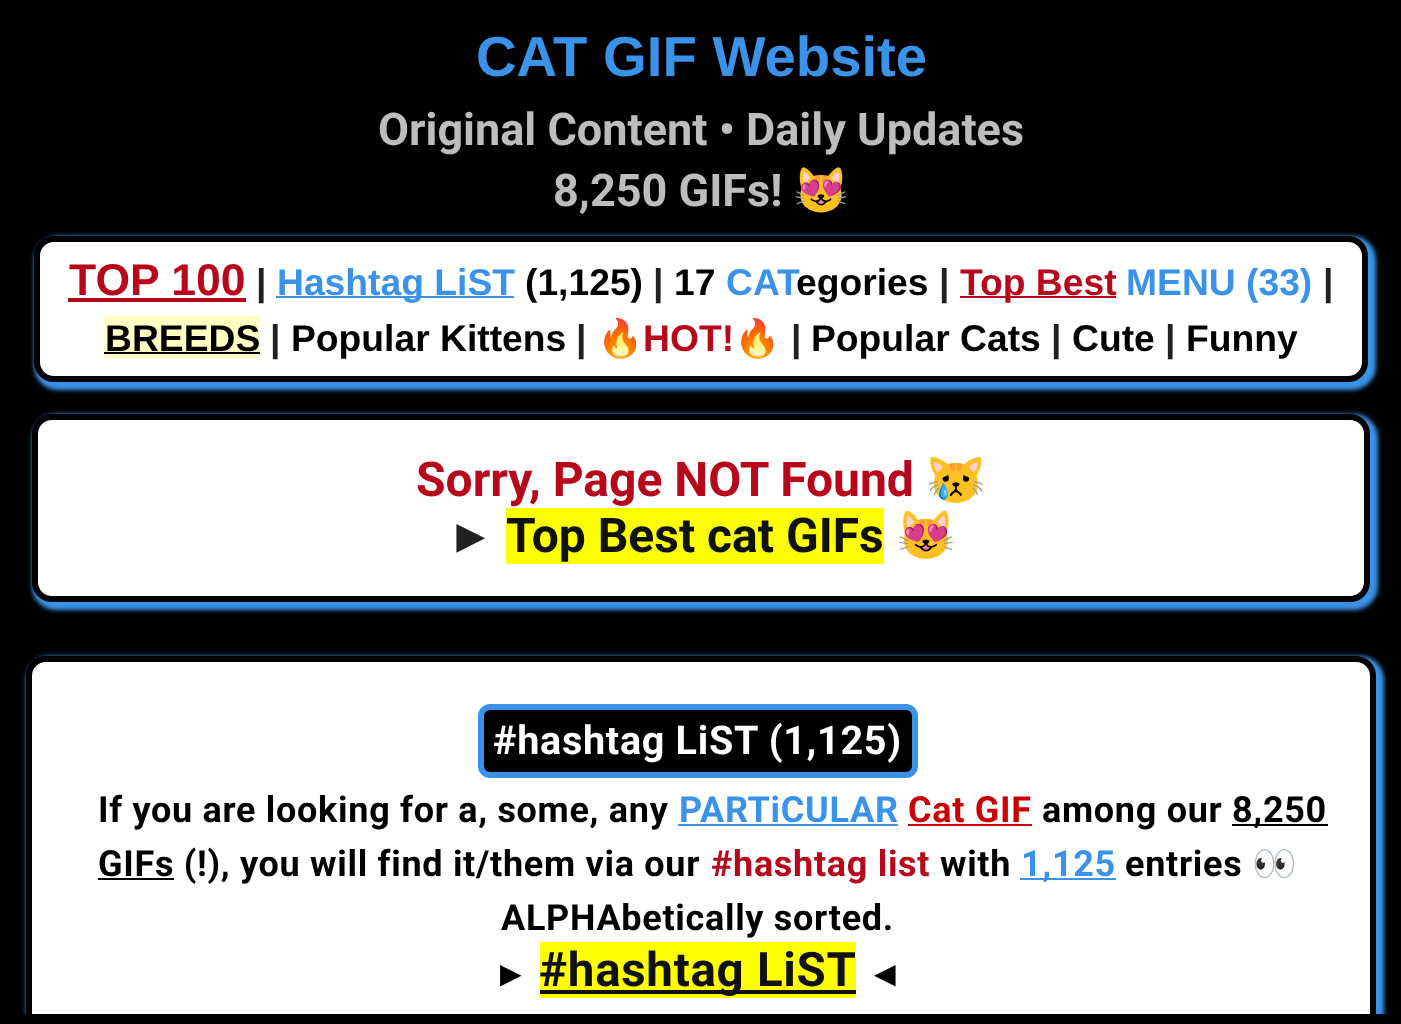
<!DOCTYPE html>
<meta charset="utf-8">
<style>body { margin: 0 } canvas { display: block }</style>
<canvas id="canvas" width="1401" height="1024"></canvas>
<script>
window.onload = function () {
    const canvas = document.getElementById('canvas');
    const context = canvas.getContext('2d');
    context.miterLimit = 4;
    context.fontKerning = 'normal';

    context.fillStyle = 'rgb(0, 0, 0)';
    context.fillRect(0, 0, 1401, 1024);
    context.fillStyle = 'rgb(58, 146, 233)';
    context.filter = 'blur(2px)';
    context.beginPath();
    context.roundRect(34, 236, 1342, 154, 24);
    context.fill();
    context.filter = 'none';
    context.fillStyle = 'rgb(255, 255, 255)';
    context.beginPath();
    context.roundRect(37, 239, 1328, 140, 17);
    context.fill();
    context.strokeStyle = 'rgb(0, 0, 0)';
    context.lineWidth = 6;
    context.stroke();
    context.fillStyle = 'rgb(184, 7, 27)';
    context.fillRect(68, 298, 178, 4);
    context.fillStyle = 'rgb(58, 146, 233)';
    context.fillRect(276, 296, 238, 2);
    context.fillStyle = 'rgb(184, 7, 27)';
    context.fillRect(960, 296, 156, 2);
    context.fillStyle = 'rgb(255, 255, 196)';
    context.fillRect(104, 316, 156, 42);
    context.fillStyle = 'rgb(0, 0, 0)';
    context.fillRect(104, 352, 156, 2);
    context.fillStyle = 'rgb(58, 146, 233)';
    context.filter = 'blur(2px)';
    context.beginPath();
    context.roundRect(32, 414, 1346, 196, 24);
    context.fill();
    context.filter = 'none';
    context.fillStyle = 'rgb(255, 255, 255)';
    context.beginPath();
    context.roundRect(35, 417, 1332, 182, 17);
    context.fill();
    context.stroke();
    context.fillStyle = 'rgb(252, 255, 1)';
    context.fillRect(506, 508, 378, 56);
    context.fillStyle = 'rgb(58, 146, 233)';
    context.filter = 'blur(2px)';
    context.beginPath();
    context.roundRect(26, 656, 1358, 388, 24);
    context.fill();
    context.filter = 'none';
    context.fillStyle = 'rgb(255, 255, 255)';
    context.beginPath();
    context.roundRect(29, 659, 1344, 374, 17);
    context.fill();
    context.stroke();
    context.fillStyle = 'rgb(0, 0, 0)';
    context.beginPath();
    context.roundRect(481, 707, 434, 68, 9);
    context.fill();
    context.strokeStyle = 'rgb(58, 146, 233)';
    context.stroke();
    context.fillStyle = 'rgb(58, 146, 233)';
    context.fillRect(678, 824, 220, 2);
    context.fillStyle = 'rgb(204, 0, 0)';
    context.fillRect(908, 824, 124, 2);
    context.fillStyle = 'rgb(0, 0, 0)';
    context.fillRect(1232, 824, 96, 2);
    context.fillRect(98, 878, 76, 2);
    context.fillStyle = 'rgb(58, 146, 233)';
    context.fillRect(1020, 878, 96, 2);
    context.fillStyle = 'rgb(255, 255, 0)';
    context.fillRect(540, 942, 316, 56);
    context.fillStyle = 'rgb(17, 17, 17)';
    context.fillRect(540, 990, 316, 4);
    context.fillStyle = 'rgb(0, 0, 0)';
    context.fillRect(21, 1014, 1368, 10);
    context.font = 'bold 56.25px Liberation Sans';
    context.fillStyle = 'rgb(58, 146, 233)';
    context.fillText('CAT GIF Website', 476, 76);
    context.font = 'bold 45px Roboto';
    context.fillStyle = 'rgb(189, 189, 189)';
    context.fillText('Original Content • Daily Updates', 378, 145);
    context.fillText('8,250 GIFs!', 553, 206);
    context.font = 'bold 45px Noto Color Emoji';
    context.fillText('😻', 793, 206);
    context.font = 'bold 44.5px Liberation Sans';
    context.fillStyle = 'rgb(184, 7, 27)';
    context.fillText('TOP 100', 69, 295);
    context.font = 'bold 37.25px Liberation Sans';
    context.fillStyle = 'rgb(33, 33, 33)';
    context.fillText('|', 256, 295);
    context.fillStyle = 'rgb(58, 146, 233)';
    context.fillText('Hashtag LiST', 277, 295);
    context.fillStyle = 'rgb(0, 0, 0)';
    context.fillText('(1,125)', 525, 295);
    context.fillStyle = 'rgb(33, 33, 33)';
    context.fillText('|', 653, 295);
    context.fillStyle = 'rgb(0, 0, 0)';
    context.fillText('17', 674, 295);
    context.fillStyle = 'rgb(58, 146, 233)';
    context.fillText('CAT', 726, 295);
    context.fillStyle = 'rgb(0, 0, 0)';
    context.fillText('egories', 796, 295);
    context.fillStyle = 'rgb(33, 33, 33)';
    context.fillText('|', 939, 295);
    context.fillStyle = 'rgb(184, 7, 27)';
    context.fillText('Top Best', 960, 295);
    context.fillStyle = 'rgb(58, 146, 233)';
    context.fillText('MENU (33)', 1126, 295);
    context.fillStyle = 'rgb(33, 33, 33)';
    context.fillText('|', 1323, 295);
    context.fillStyle = 'rgb(0, 0, 0)';
    context.fillText('BREEDS', 105, 351);
    context.fillStyle = 'rgb(33, 33, 33)';
    context.fillText('|', 270, 351);
    context.fillStyle = 'rgb(0, 0, 0)';
    context.fillText('Popular Kittens', 291, 351);
    context.fillStyle = 'rgb(33, 33, 33)';
    context.fillText('|', 576, 351);
    context.font = 'bold 37.25px Noto Color Emoji';
    context.fillStyle = 'rgb(184, 7, 27)';
    context.fillText('🔥', 597, 351);
    context.font = 'bold 37.25px Liberation Sans';
    context.fillText('HOT!', 643, 351);
    context.font = 'bold 37.25px Noto Color Emoji';
    context.fillText('🔥', 734, 351);
    context.font = 'bold 37.25px Liberation Sans';
    context.fillStyle = 'rgb(33, 33, 33)';
    context.fillText('|', 791, 351);
    context.fillStyle = 'rgb(0, 0, 0)';
    context.fillText('Popular Cats', 811, 351);
    context.fillStyle = 'rgb(33, 33, 33)';
    context.fillText('|', 1051, 351);
    context.fillStyle = 'rgb(0, 0, 0)';
    context.fillText('Cute', 1072, 351);
    context.fillStyle = 'rgb(33, 33, 33)';
    context.fillText('|', 1165, 351);
    context.fillStyle = 'rgb(0, 0, 0)';
    context.fillText('Funny', 1186, 351);
    context.font = 'bold 48px Roboto';
    context.fillStyle = 'rgb(184, 7, 27)';
    context.fillText('Sorry, Page NOT Found', 416, 496);
    context.font = 'bold 48px Noto Color Emoji';
    context.fillText('😿', 926, 496);
    context.font = '48px Liberation Sans';
    context.fillStyle = 'rgb(33, 33, 33)';
    context.fillText('►', 447, 552);
    context.font = 'bold 48px Roboto';
    context.fillStyle = 'rgb(17, 17, 17)';
    context.fillText('Top Best cat GIFs', 506, 552);
    context.font = '48px Noto Color Emoji';
    context.fillStyle = 'rgb(33, 33, 33)';
    context.fillText('😻', 896, 552);
    context.letterSpacing = '0.7px';
    context.font = 'bold 39.6px Roboto';
    context.fillStyle = 'rgb(255, 255, 255)';
    context.fillText('#hashtag LiST (1,125)', 493, 754);
    context.font = 'bold 36px Roboto';
    context.fillStyle = 'rgb(0, 0, 0)';
    context.fillText('If you are looking for a, some, any', 98, 822);
    context.fillStyle = 'rgb(58, 146, 233)';
    context.fillText('PARTiCULAR', 679, 822);
    context.fillStyle = 'rgb(204, 0, 0)';
    context.fillText('Cat GIF', 908, 822);
    context.fillStyle = 'rgb(0, 0, 0)';
    context.fillText('among our', 1042, 822);
    context.fillText('8,250', 1232, 822);
    context.fillText('GIFs (!), you will find it/them via our', 98, 876);
    context.fillStyle = 'rgb(184, 7, 27)';
    context.fillText('#hashtag list', 711, 876);
    context.fillStyle = 'rgb(0, 0, 0)';
    context.fillText('with', 940, 876);
    context.fillStyle = 'rgb(58, 146, 233)';
    context.fillText('1,125', 1021, 876);
    context.fillStyle = 'rgb(0, 0, 0)';
    context.fillText('entries', 1125, 876);
    context.font = 'bold 36px Noto Color Emoji';
    context.fillText('👀', 1252, 876);
    context.font = 'bold 36px Roboto';
    context.fillText('ALPHAbetically sorted.', 501, 930);
    context.font = 'bold 36px Liberation Sans';
    context.fillText('►', 493, 986);
    context.font = 'bold 47.5px Roboto';
    context.fillStyle = 'rgb(17, 17, 17)';
    context.fillText('#hashtag LiST', 539, 986);
    context.font = 'bold 36px Liberation Sans';
    context.fillStyle = 'rgb(0, 0, 0)';
    context.fillText('◄', 867, 986);
};
</script>
